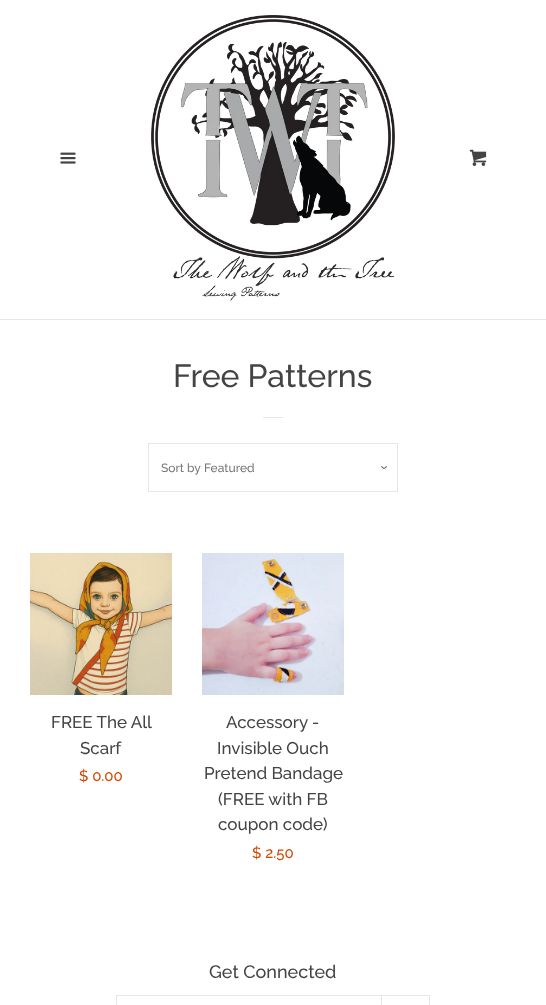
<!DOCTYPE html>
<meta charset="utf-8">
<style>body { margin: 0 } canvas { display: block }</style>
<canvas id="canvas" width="546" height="1005"></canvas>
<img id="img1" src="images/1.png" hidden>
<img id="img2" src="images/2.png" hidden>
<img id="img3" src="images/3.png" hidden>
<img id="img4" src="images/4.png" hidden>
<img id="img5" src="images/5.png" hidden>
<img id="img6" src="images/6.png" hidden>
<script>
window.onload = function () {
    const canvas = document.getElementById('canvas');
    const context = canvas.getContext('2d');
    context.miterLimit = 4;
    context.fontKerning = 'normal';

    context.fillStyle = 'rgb(255, 255, 255)';
    context.fillRect(0, 0, 546, 1005);
    context.fillStyle = 'rgb(231, 231, 231)';
    context.fillRect(0, 319, 546, 1);
    context.drawImage(document.getElementById('img1'), 60, 152, 16, 12);
    context.drawImage(document.getElementById('img2'), 151, 15, 244, 286);
    context.drawImage(document.getElementById('img3'), 469, 149, 18, 17);
    context.fillRect(263, 417, 20, 1);
    context.drawImage(document.getElementById('img4'), 381, 466, 6, 3);
    context.strokeStyle = 'rgb(231, 231, 231)';
    context.strokeRect(148.5, 443.5, 249, 48);
    context.drawImage(document.getElementById('img5'), 30, 553, 142, 142);
    context.drawImage(document.getElementById('img6'), 202, 553, 142, 142);
    context.strokeRect(116.5, 995.5, 313, 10);
    context.fillRect(381, 996, 1, 9);
    context.font = '500 32px Raleway';
    context.fillStyle = 'rgb(68, 68, 68)';
    context.fillText('Free Patterns', 173, 387);
    context.font = '500 12px Raleway';
    context.fillStyle = 'rgb(119, 119, 119)';
    context.fillText('Sort by', 161, 472);
    context.fillText('Featured', 204, 472);
    context.font = '500 17px Raleway';
    context.fillStyle = 'rgb(68, 68, 68)';
    context.fillText('FREE The All', 51, 728);
    context.fillText('Scarf', 80, 754);
    context.font = '500 15px Raleway';
    context.fillStyle = 'rgb(209, 72, 0)';
    context.fillText('$ 0.00', 79, 781);
    context.font = '500 17px Raleway';
    context.fillStyle = 'rgb(68, 68, 68)';
    context.fillText('Accessory -', 226, 728);
    context.fillText('Invisible Ouch', 217, 754);
    context.fillText('Pretend Bandage', 204, 779);
    context.fillText('(FREE with FB', 218, 805);
    context.fillText('coupon code)', 218, 830);
    context.font = '500 15px Raleway';
    context.fillStyle = 'rgb(209, 72, 0)';
    context.fillText('$ 2.50', 252, 858);
    context.font = '500 18px Raleway';
    context.fillStyle = 'rgb(68, 68, 68)';
    context.fillText('Get Connected', 209, 978);
};
</script>
